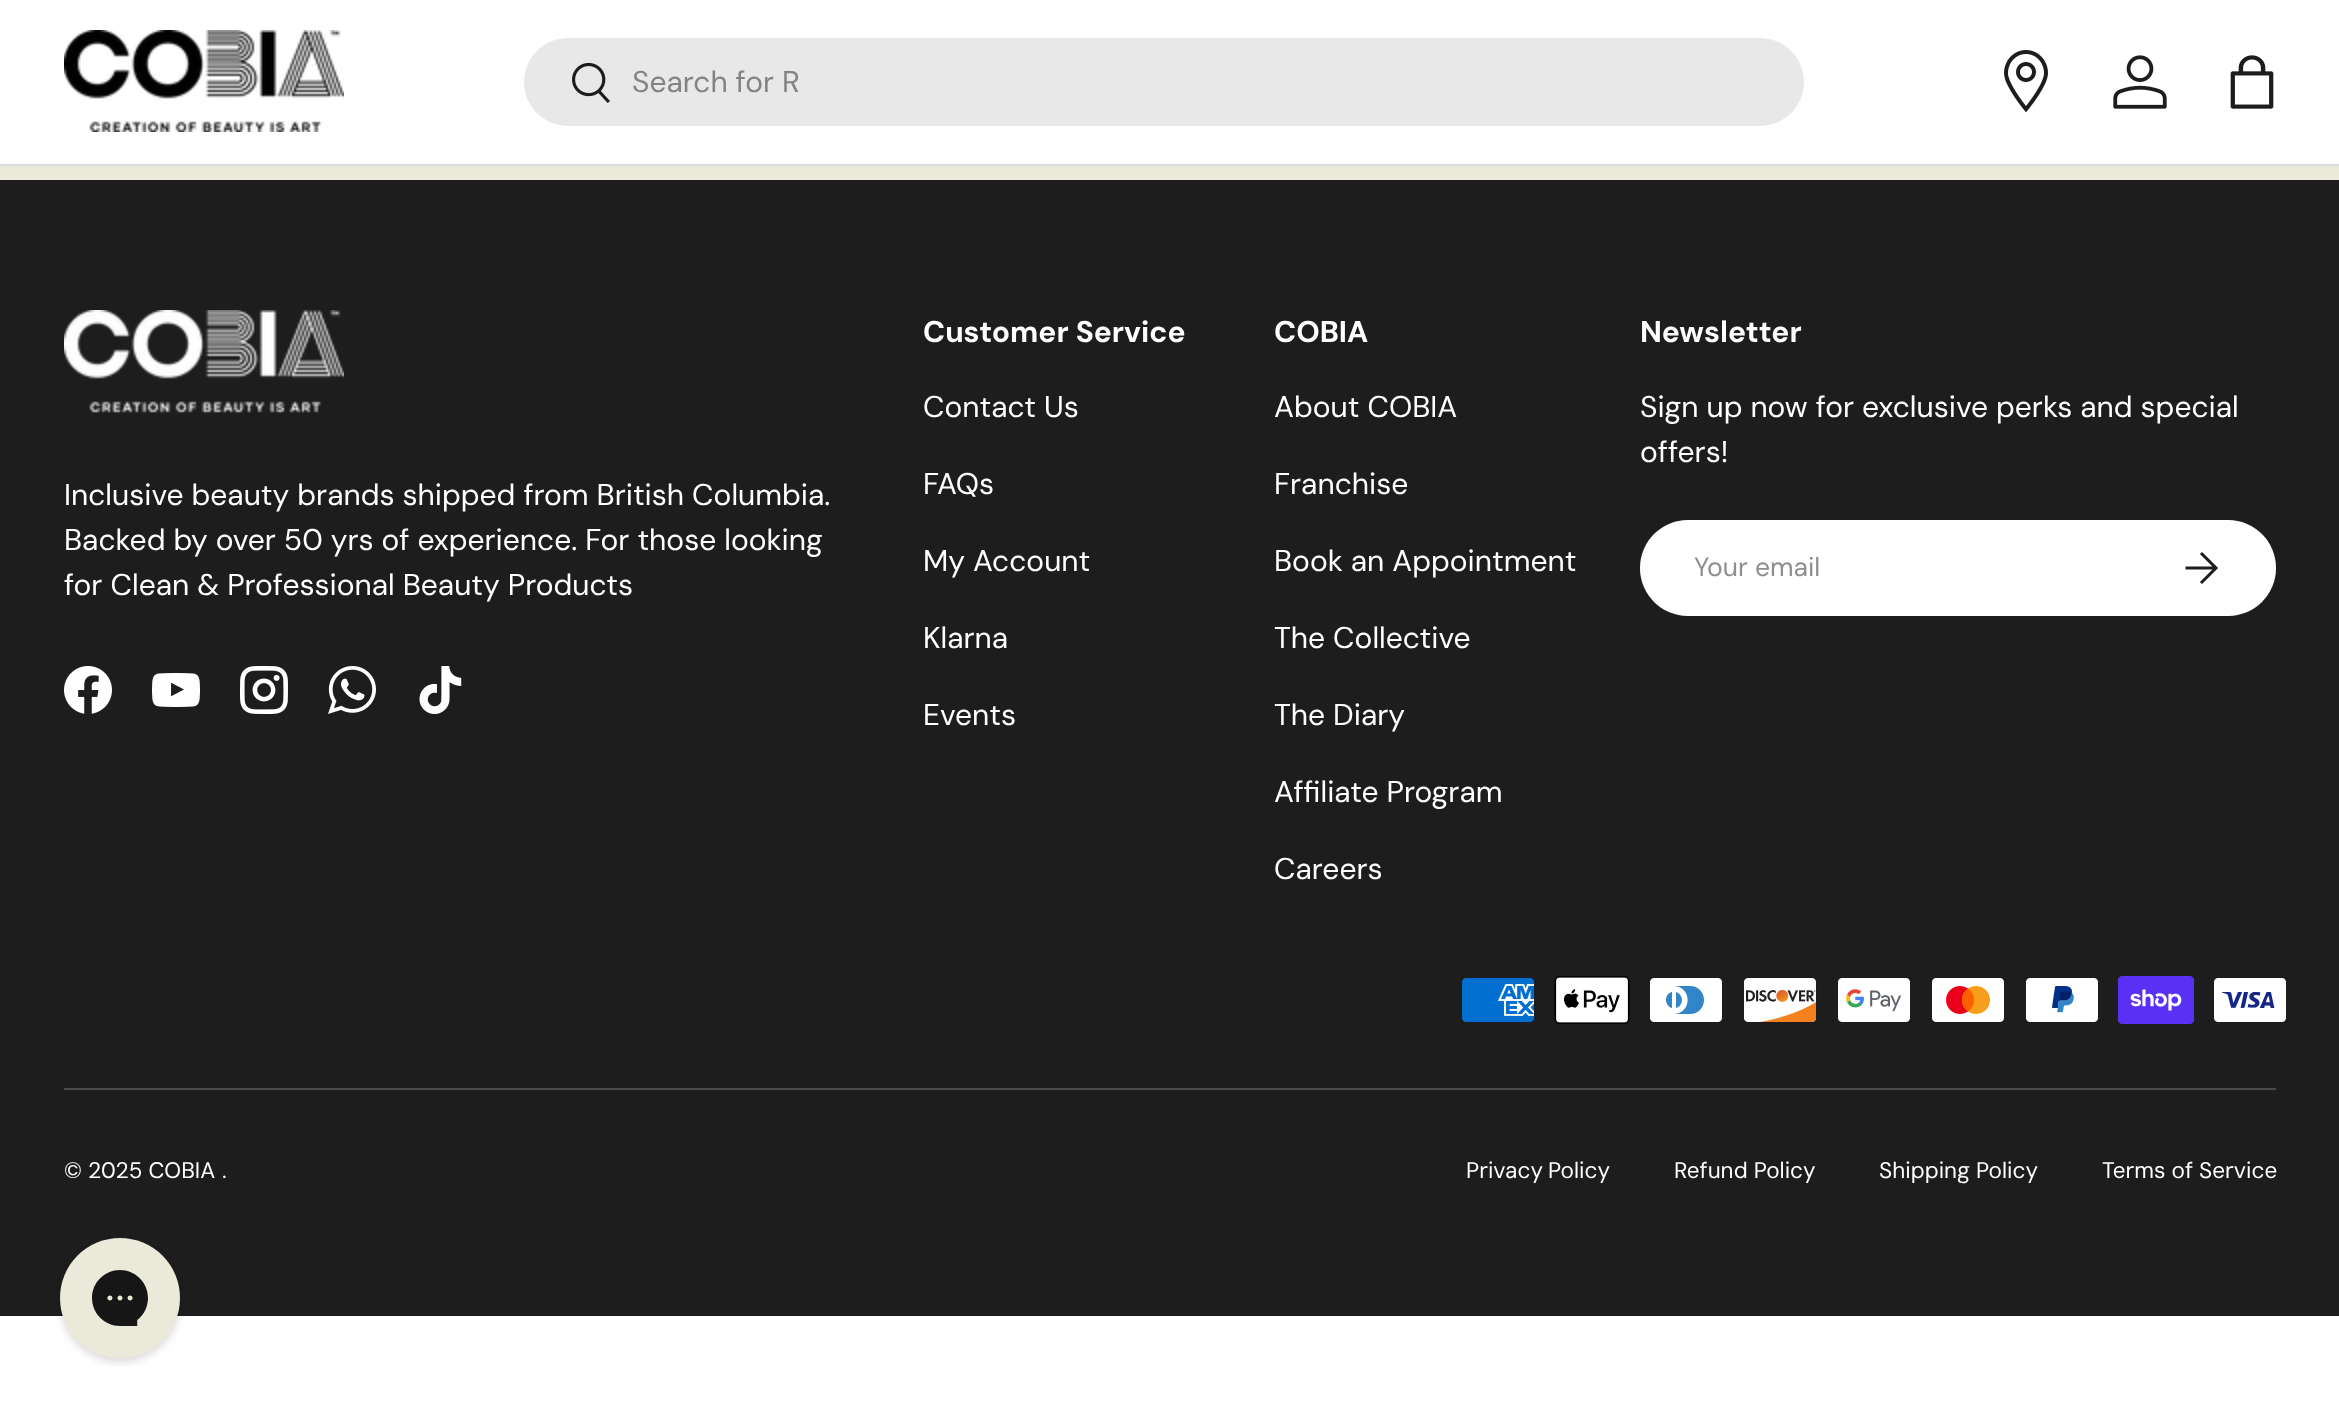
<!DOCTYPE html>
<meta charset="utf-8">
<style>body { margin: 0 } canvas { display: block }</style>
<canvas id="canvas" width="2339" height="1412"></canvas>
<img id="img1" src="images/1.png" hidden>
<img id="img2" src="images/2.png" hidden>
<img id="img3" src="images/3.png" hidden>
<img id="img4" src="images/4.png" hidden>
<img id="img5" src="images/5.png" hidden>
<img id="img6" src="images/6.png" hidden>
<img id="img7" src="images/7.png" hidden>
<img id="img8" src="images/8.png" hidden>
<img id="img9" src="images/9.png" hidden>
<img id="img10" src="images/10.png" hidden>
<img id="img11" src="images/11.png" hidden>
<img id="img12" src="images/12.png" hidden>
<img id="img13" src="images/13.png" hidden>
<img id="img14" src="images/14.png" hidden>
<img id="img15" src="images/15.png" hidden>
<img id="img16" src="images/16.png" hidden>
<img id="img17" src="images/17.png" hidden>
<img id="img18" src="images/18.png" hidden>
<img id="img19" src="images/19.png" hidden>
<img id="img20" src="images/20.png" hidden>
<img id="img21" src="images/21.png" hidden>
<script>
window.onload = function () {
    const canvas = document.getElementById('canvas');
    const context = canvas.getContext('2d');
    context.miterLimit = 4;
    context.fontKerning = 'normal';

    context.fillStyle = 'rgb(255, 255, 255)';
    context.fillRect(0, 0, 2339, 1412);
    context.fillStyle = 'rgb(221, 221, 221)';
    context.fillRect(0, 164, 2339, 2);
    context.drawImage(document.getElementById('img1'), 64, 30, 280, 102);
    context.fillStyle = 'rgb(232, 232, 232)';
    context.beginPath();
    context.roundRect(524, 38, 1280, 88, 44);
    context.fill();
    context.drawImage(document.getElementById('img2'), 572, 62, 38, 41);
    context.drawImage(document.getElementById('img3'), 2004, 50, 44, 63);
    context.drawImage(document.getElementById('img4'), 2113, 55, 54, 54);
    context.drawImage(document.getElementById('img5'), 2230, 55, 44, 54);
    context.fillStyle = 'rgb(235, 233, 218)';
    context.fillRect(0, 166, 2339, 14);
    context.fillStyle = 'rgb(29, 29, 29)';
    context.fillRect(0, 180, 2339, 1136);
    context.drawImage(document.getElementById('img6'), 64, 310, 280, 103);
    context.drawImage(document.getElementById('img7'), 64, 666, 48, 48);
    context.drawImage(document.getElementById('img8'), 152, 673, 48, 34);
    context.drawImage(document.getElementById('img9'), 240, 666, 48, 48);
    context.drawImage(document.getElementById('img10'), 328, 666, 48, 48);
    context.drawImage(document.getElementById('img11'), 419, 666, 43, 48);
    context.fillStyle = 'rgb(255, 255, 255)';
    context.beginPath();
    context.roundRect(1640, 520, 636, 96, 48);
    context.fill();
    context.beginPath();
    context.roundRect(1642, 522, 632, 92, 46);
    context.strokeStyle = 'rgba(255, 255, 255, 0.2)';
    context.lineWidth = 4;
    context.stroke();
    context.beginPath();
    context.moveTo(2185.5, 568);
    context.lineTo(2215, 568);
    context.moveTo(2201, 553);
    context.lineTo(2216, 568);
    context.lineTo(2201, 583);
    context.strokeStyle = 'rgb(29, 29, 29)';
    context.lineWidth = 3;
    context.stroke();
    context.drawImage(document.getElementById('img12'), 1462, 978, 72, 44);
    context.drawImage(document.getElementById('img13'), 1554, 976, 76, 48);
    context.drawImage(document.getElementById('img14'), 1650, 978, 72, 44);
    context.drawImage(document.getElementById('img15'), 1744, 978, 73, 44);
    context.drawImage(document.getElementById('img16'), 1838, 978, 72, 44);
    context.drawImage(document.getElementById('img17'), 1932, 978, 72, 44);
    context.drawImage(document.getElementById('img18'), 2026, 978, 72, 44);
    context.drawImage(document.getElementById('img19'), 2118, 976, 76, 48);
    context.drawImage(document.getElementById('img20'), 2214, 978, 72, 44);
    context.fillStyle = 'rgb(74, 74, 74)';
    context.fillRect(64, 1088, 2212, 2);
    context.drawImage(document.getElementById('img21'), 57, 1238, 126, 128);
    context.font = '30px DM Sans';
    context.fillStyle = 'rgb(131, 131, 131)';
    context.fillText('Search for R', 632, 92);
    context.fillStyle = 'rgb(255, 255, 255)';
    context.fillText('Inclusive beauty brands shipped from British Columbia.', 64, 505);
    context.fillText('Backed by over 50 yrs of experience. For those looking', 64, 550);
    context.fillText('for Clean & Professional Beauty Products', 64, 595);
    context.font = 'bold 30px DM Sans';
    context.fillText('Customer Service', 923, 342);
    context.font = '30px DM Sans';
    context.fillText('Contact Us', 923, 417);
    context.fillText('FAQs', 923, 494);
    context.fillText('My Account', 923, 571);
    context.fillText('Klarna', 923, 648);
    context.fillText('Events', 923, 725);
    context.font = 'bold 30px DM Sans';
    context.fillText('COBIA', 1274, 342);
    context.font = '30px DM Sans';
    context.fillText('About COBIA', 1274, 417);
    context.fillText('Franchise', 1274, 494);
    context.fillText('Book an Appointment', 1274, 571);
    context.fillText('The Collective', 1274, 648);
    context.fillText('The Diary', 1274, 725);
    context.fillText('Affiliate Program', 1274, 802);
    context.fillText('Careers', 1274, 879);
    context.font = 'bold 30px DM Sans';
    context.fillText('Newsletter', 1640, 342);
    context.font = '30px DM Sans';
    context.fillText('Sign up now for exclusive perks and special', 1640, 417);
    context.fillText('offers!', 1640, 462);
    context.font = '26.5px "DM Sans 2"';
    context.fillStyle = 'rgb(142, 142, 142)';
    context.fillText('Your email', 1694, 576);
    context.font = '22.5px "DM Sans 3"';
    context.fillStyle = 'rgb(255, 255, 255)';
    context.fillText('© 2025 COBIA', 64, 1178);
    context.fillText('.', 222, 1178);
    context.wordSpacing = '-1px';
    context.fillText('Privacy Policy', 1466, 1178);
    context.wordSpacing = '0px';
    context.fillText('Refund Policy', 1674, 1178);
    context.fillText('Shipping Policy', 1879, 1178);
    context.fillText('Terms of Service', 2102, 1178);
};
</script>
